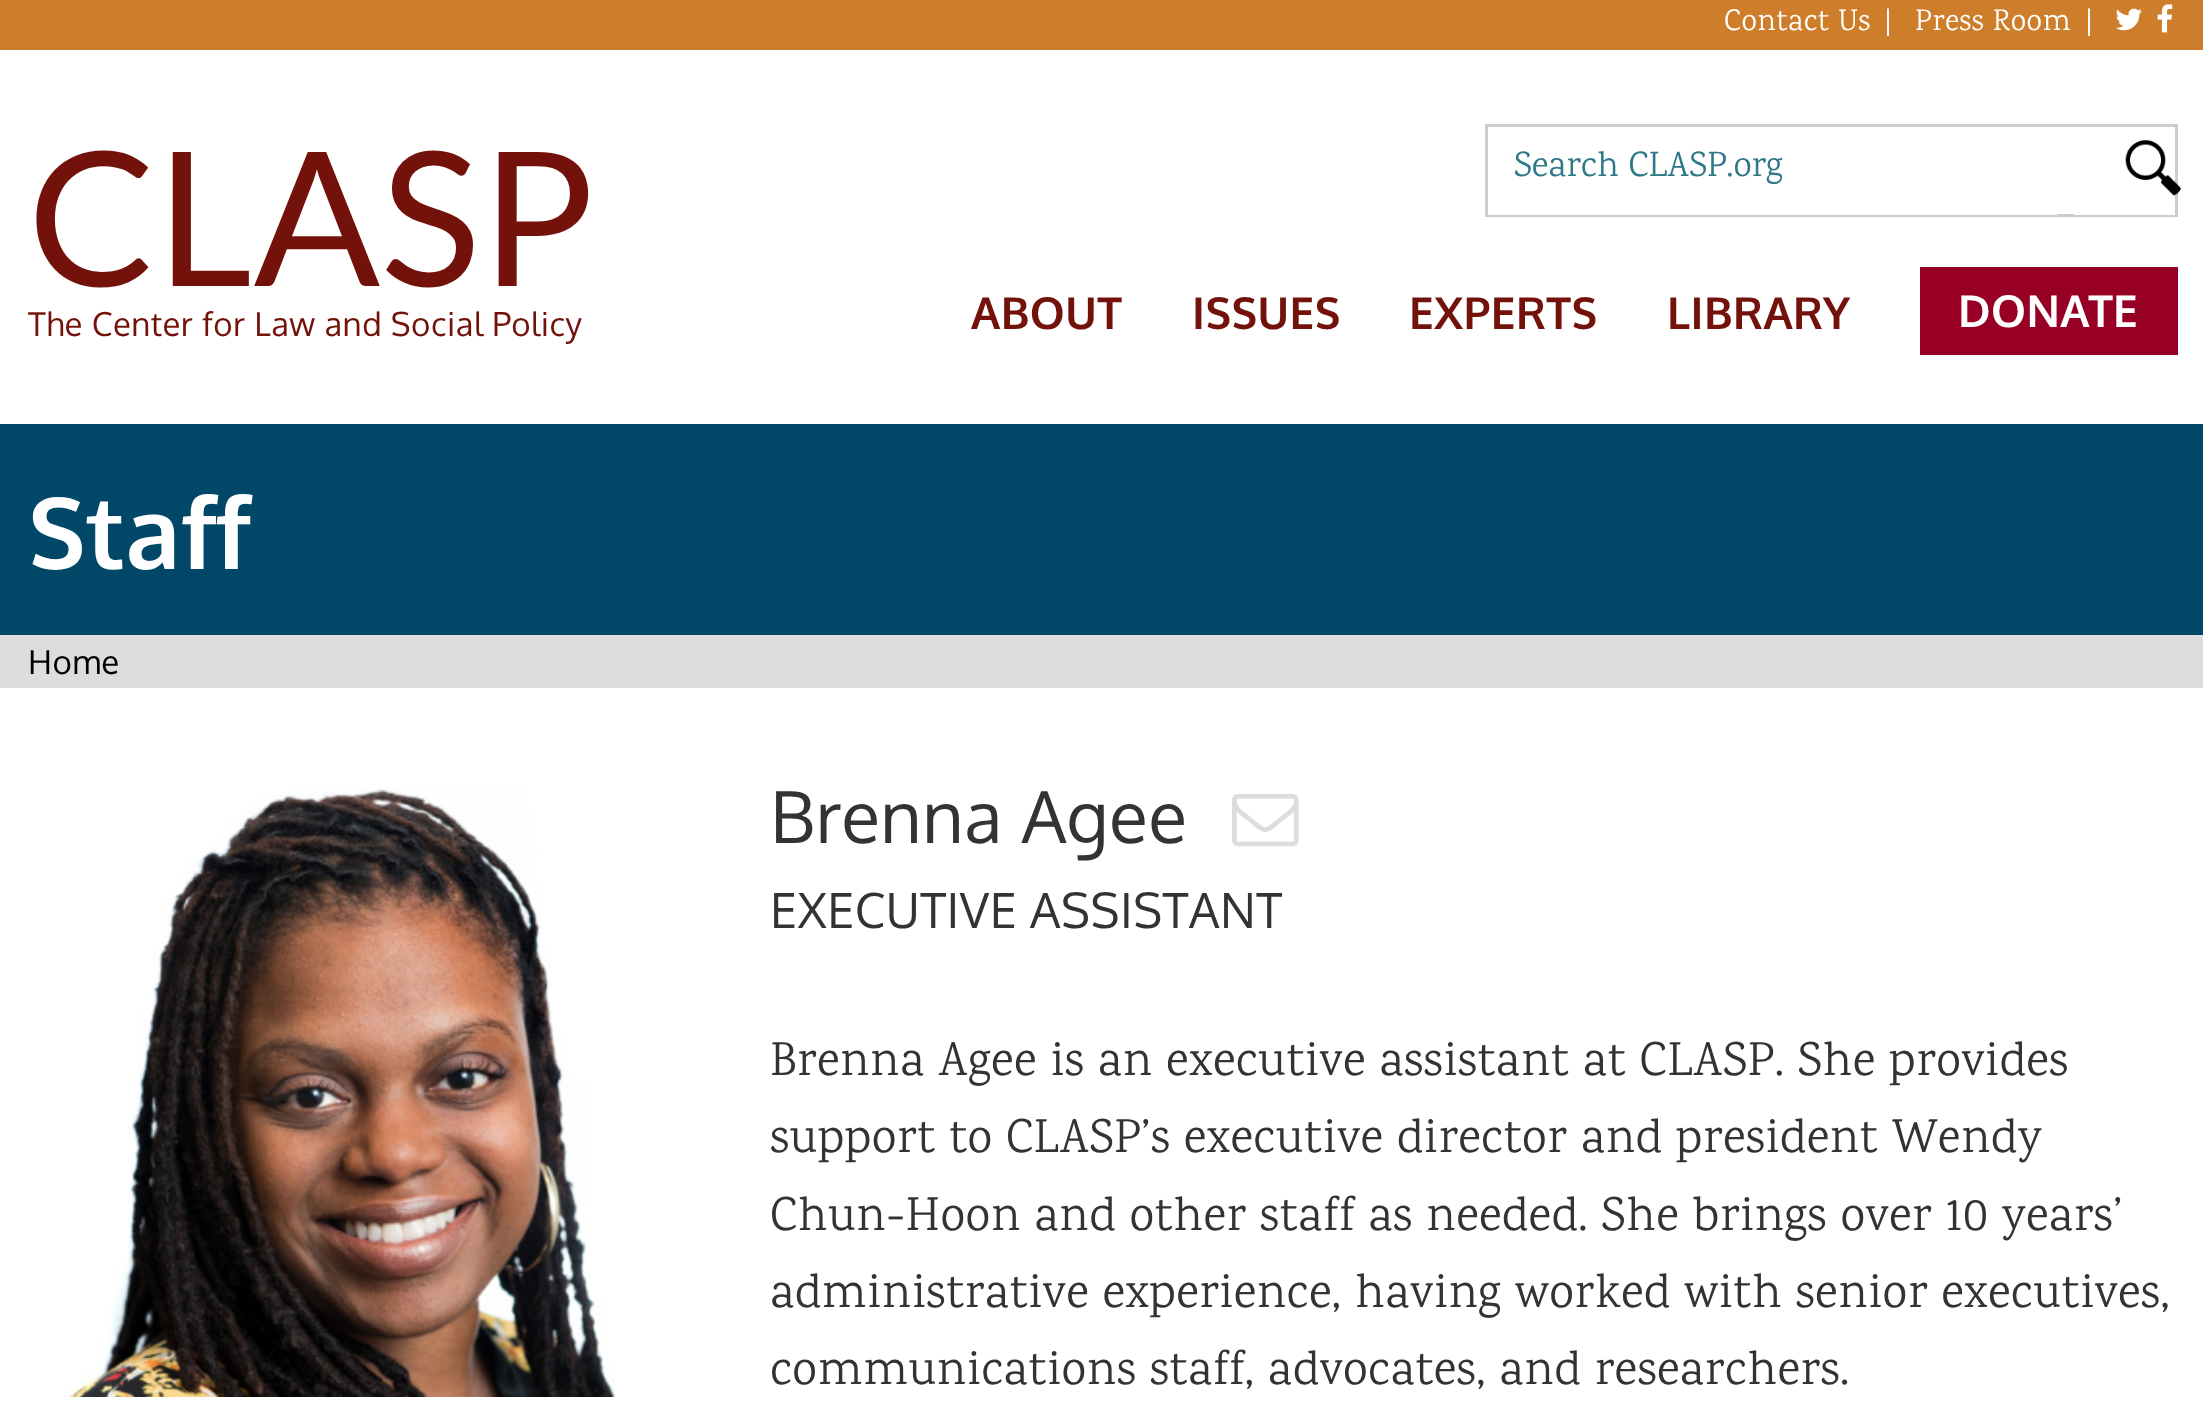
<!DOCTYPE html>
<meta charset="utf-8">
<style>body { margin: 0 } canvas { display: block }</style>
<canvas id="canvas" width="2203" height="1425"></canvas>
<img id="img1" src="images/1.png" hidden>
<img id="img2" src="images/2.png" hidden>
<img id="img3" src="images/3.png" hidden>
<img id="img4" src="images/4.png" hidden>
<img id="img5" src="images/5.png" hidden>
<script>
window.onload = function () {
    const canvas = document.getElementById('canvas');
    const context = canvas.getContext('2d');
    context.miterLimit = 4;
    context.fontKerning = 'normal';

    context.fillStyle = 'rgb(255, 255, 255)';
    context.fillRect(0, 0, 2203, 1425);
    context.fillStyle = 'rgb(206, 126, 43)';
    context.fillRect(0, 0, 2203, 50);
    context.drawImage(document.getElementById('img1'), 2115, 8, 27, 23);
    context.drawImage(document.getElementById('img2'), 2157, 4, 16, 29);
    context.strokeStyle = 'rgb(204, 204, 204)';
    context.lineWidth = 3;
    context.strokeRect(1486.5, 125.5, 690, 90);
    context.fillStyle = 'rgb(255, 255, 255)';
    context.fillRect(1488, 214, 569, 1);
    context.drawImage(document.getElementById('img3'), 2125, 140, 56, 56);
    context.fillRect(2074, 214, 101, 1);
    context.fillStyle = 'rgb(151, 0, 36)';
    context.fillRect(1920, 267, 258, 88);
    context.fillStyle = 'rgb(1, 72, 104)';
    context.fillRect(0, 424, 2203, 211);
    context.fillStyle = 'rgb(221, 221, 221)';
    context.fillRect(0, 635, 2203, 53);
    context.drawImage(document.getElementById('img4'), 65, 788, 551, 609);
    context.drawImage(document.getElementById('img5'), 1232, 794, 67, 53);
    context.letterSpacing = '0.48px';
    context.font = '30.25px Karma';
    context.fillStyle = 'rgb(255, 255, 255)';
    context.fillText('Contact Us', 1724, 30);
    context.fillText('|', 1884, 30);
    context.fillText('Press Room', 1915, 30);
    context.fillText('|', 2085, 30);
    context.font = '187px Lato';
    context.fillStyle = 'rgb(114, 18, 11)';
    context.fillText('CLASP', 28, 286);
    context.font = '33px Oxygen';
    context.fillText('The Center for Law and Social Policy', 28, 336);
    context.letterSpacing = '0px';
    context.font = '35.75px Karma';
    context.fillStyle = 'rgb(46, 120, 135)';
    context.fillText('Search CLASP.org', 1514, 176);
    context.letterSpacing = '0.48px';
    context.font = 'bold 44px Oxygen';
    context.fillStyle = 'rgb(114, 18, 11)';
    context.fillText('ABOUT', 971, 329);
    context.fillText('ISSUES', 1192, 329);
    context.fillText('EXPERTS', 1409, 329);
    context.fillText('LIBRARY', 1667, 329);
    context.letterSpacing = '0.5px';
    context.fillStyle = 'rgb(255, 255, 255)';
    context.fillText('DONATE', 1958, 327);
    context.letterSpacing = '0.48px';
    context.font = 'bold 99px Oxygen';
    context.fillText('Staff', 28, 569);
    context.font = '33px Oxygen';
    context.fillStyle = 'rgb(0, 0, 0)';
    context.fillText('Home', 28, 674);
    context.font = '71.5px Oxygen';
    context.fillStyle = 'rgb(51, 51, 51)';
    context.fillText('Brenna Agee', 770, 843);
    context.font = '48.4px Oxygen';
    context.fillText('EXECUTIVE ASSISTANT', 770, 928);
    context.font = '48.4px Karma';
    context.fillText('Brenna Agee is an executive assistant at CLASP. She provides', 770, 1075);
    context.fillText('support to CLASP’s executive director and president Wendy', 770, 1152);
    context.fillText('Chun-Hoon and other staff as needed. She brings over 10 years’', 770, 1230);
    context.fillText('administrative experience, having worked with senior executives,', 770, 1307);
    context.fillText('communications staff, advocates, and researchers.', 770, 1384);
};
</script>
